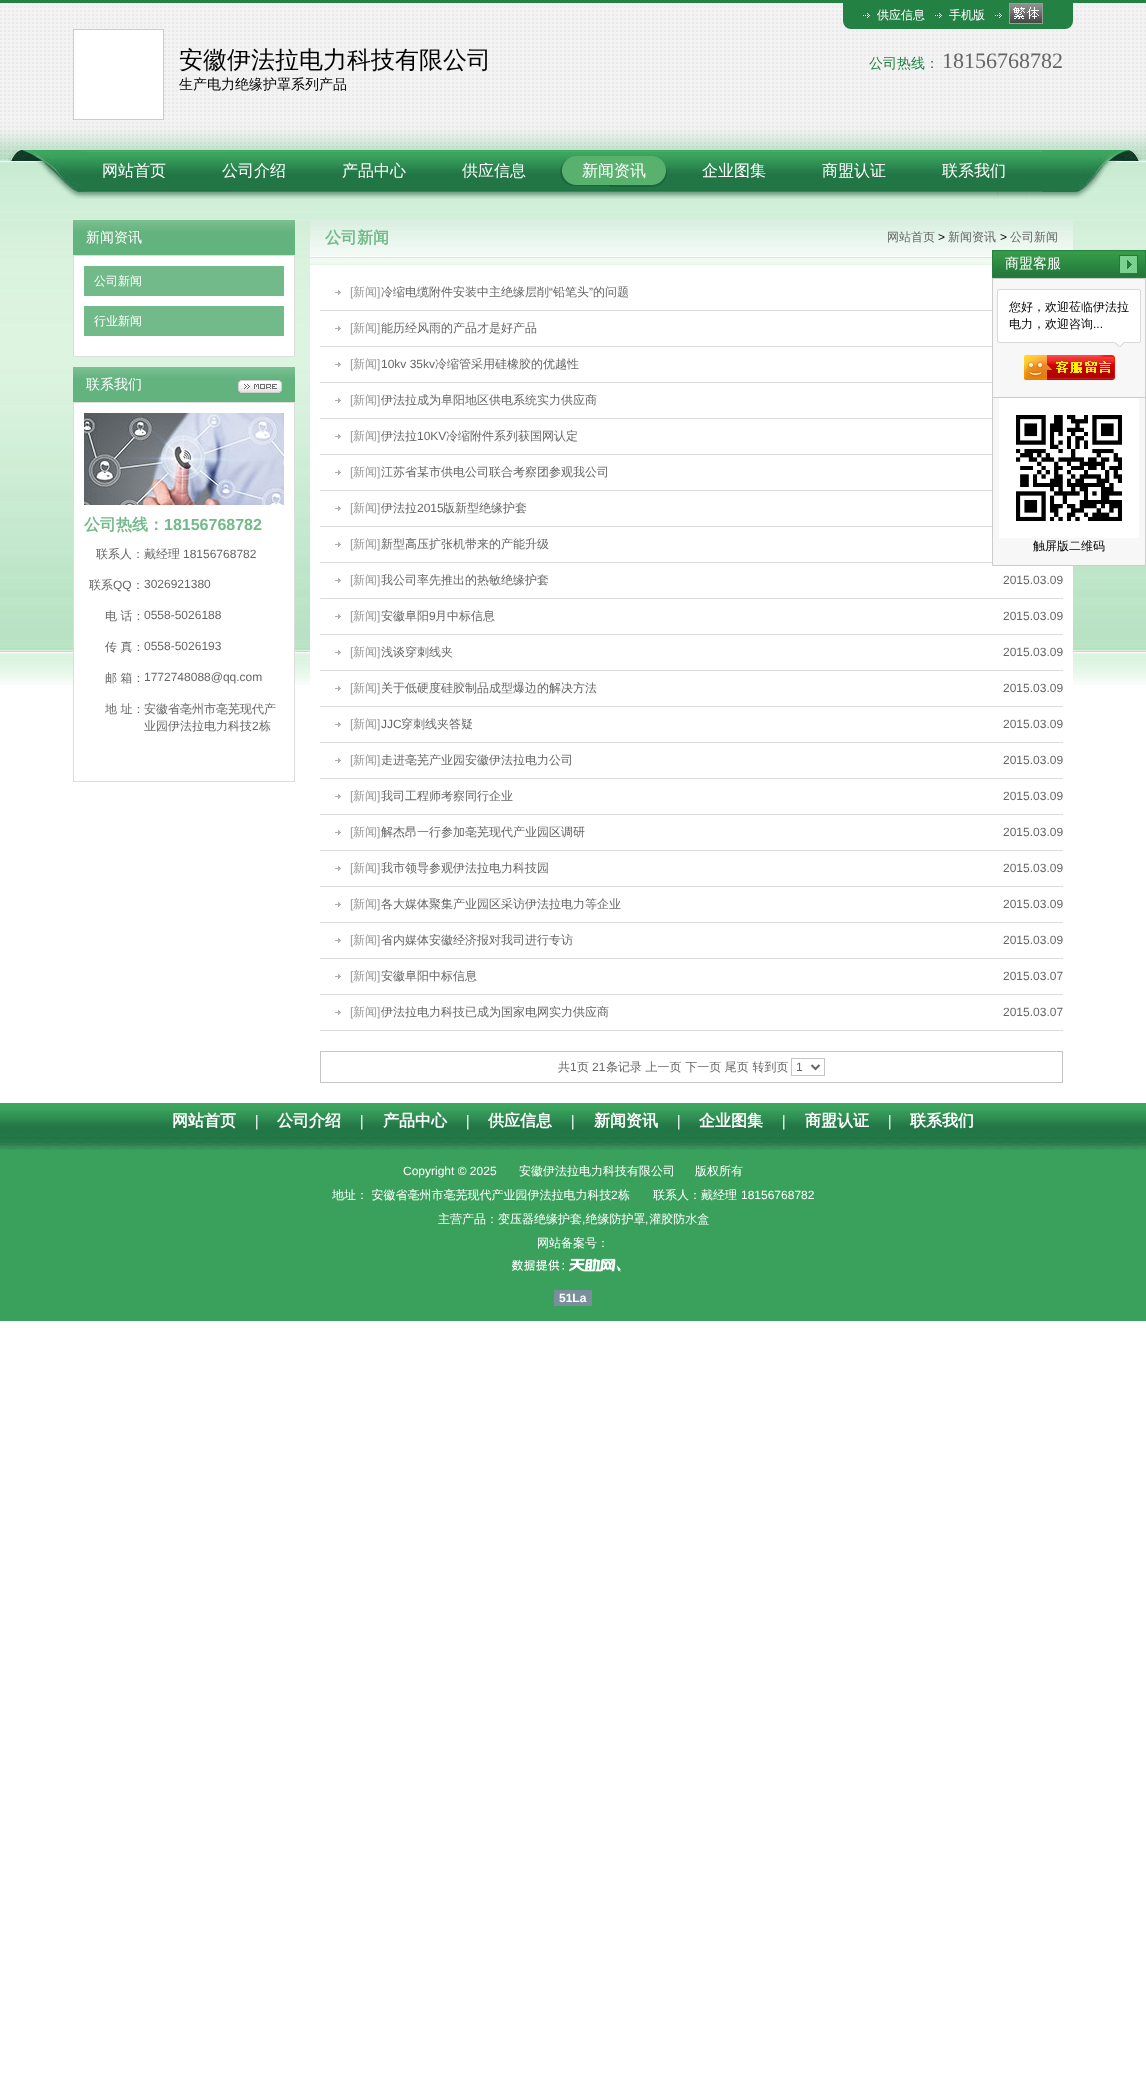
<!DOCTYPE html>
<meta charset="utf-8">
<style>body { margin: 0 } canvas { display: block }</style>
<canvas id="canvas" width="1146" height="2073"></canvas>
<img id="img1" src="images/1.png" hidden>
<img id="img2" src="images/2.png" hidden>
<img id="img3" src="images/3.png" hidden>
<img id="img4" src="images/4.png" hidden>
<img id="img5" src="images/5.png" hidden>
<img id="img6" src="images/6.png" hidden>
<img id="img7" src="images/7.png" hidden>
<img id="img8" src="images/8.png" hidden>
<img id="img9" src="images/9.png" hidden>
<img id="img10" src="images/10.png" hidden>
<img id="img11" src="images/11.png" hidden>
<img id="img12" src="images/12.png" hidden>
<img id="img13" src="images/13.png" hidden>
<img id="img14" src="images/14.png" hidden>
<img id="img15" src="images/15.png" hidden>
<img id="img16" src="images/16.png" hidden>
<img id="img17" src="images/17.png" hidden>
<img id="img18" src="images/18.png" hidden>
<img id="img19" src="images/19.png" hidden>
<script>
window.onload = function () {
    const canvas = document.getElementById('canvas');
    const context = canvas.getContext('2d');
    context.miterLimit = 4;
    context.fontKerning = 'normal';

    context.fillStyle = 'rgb(255, 255, 255)';
    context.fillRect(0, 0, 1146, 2073);
    context.drawImage(document.getElementById('img1'), 0, 3, 1146, 682);
    context.drawImage(document.getElementById('img2'), 8, 150, 1133, 49);
    context.fillStyle = 'rgb(35, 129, 67)';
    context.fillRect(0, 0, 1146, 3);
    context.beginPath();
    context.roundRect(843, 3, 230, 26, [0, 0, 8, 8]);
    context.fill();
    context.drawImage(document.getElementById('img3'), 863, 13, 7, 5);
    context.drawImage(document.getElementById('img3'), 935, 13, 7, 5);
    context.drawImage(document.getElementById('img3'), 995, 13, 7, 5);
    context.drawImage(document.getElementById('img4'), 1009, 3, 34, 21);
    context.fillStyle = 'rgb(255, 255, 255)';
    context.fillRect(74, 30, 89, 89);
    context.fillStyle = 'rgb(204, 204, 204)';
    context.fillRect(73, 29, 91, 1);
    context.fillRect(163, 29, 1, 91);
    context.fillRect(73, 119, 91, 1);
    context.fillRect(73, 29, 1, 91);
    context.drawImage(document.getElementById('img5'), 560, 156, 52, 30);
    context.drawImage(document.getElementById('img6'), 610, 156, 57, 31);
    context.drawImage(document.getElementById('img7'), 73, 220, 222, 35);
    context.fillStyle = 'rgb(255, 255, 255)';
    context.beginPath();
    context.rect(73.5, 255.5, 221, 101);
    context.fill();
    context.strokeStyle = 'rgb(221, 221, 221)';
    context.stroke();
    context.fillStyle = 'rgb(114, 186, 138)';
    context.fillRect(84, 266, 200, 30);
    context.fillRect(84, 306, 200, 30);
    context.drawImage(document.getElementById('img7'), 73, 367, 222, 35);
    context.drawImage(document.getElementById('img8'), 238, 380, 44, 13);
    context.fillStyle = 'rgb(255, 255, 255)';
    context.fillRect(74, 403, 220, 282);
    context.strokeRect(73.5, 402.5, 221, 379);
    context.drawImage(document.getElementById('img9'), 84, 413, 200, 92);
    context.fillRect(310, 265, 763, 420);
    context.drawImage(document.getElementById('img10'), 310, 220, 763, 45);
    context.drawImage(document.getElementById('img11'), 335, 290, 6, 5);
    context.fillStyle = 'rgb(221, 221, 221)';
    context.fillRect(320, 310, 672, 1);
    context.drawImage(document.getElementById('img11'), 335, 326, 6, 5);
    context.fillRect(320, 346, 672, 1);
    context.drawImage(document.getElementById('img11'), 335, 362, 6, 5);
    context.fillRect(320, 382, 672, 1);
    context.drawImage(document.getElementById('img11'), 335, 398, 6, 5);
    context.fillRect(320, 418, 672, 1);
    context.drawImage(document.getElementById('img11'), 335, 434, 6, 5);
    context.fillRect(320, 454, 672, 1);
    context.drawImage(document.getElementById('img11'), 335, 470, 6, 5);
    context.fillRect(320, 490, 672, 1);
    context.drawImage(document.getElementById('img11'), 335, 506, 6, 5);
    context.fillRect(320, 526, 672, 1);
    context.drawImage(document.getElementById('img11'), 335, 542, 6, 5);
    context.fillRect(320, 562, 672, 1);
    context.drawImage(document.getElementById('img11'), 335, 578, 6, 5);
    context.fillRect(320, 598, 743, 1);
    context.drawImage(document.getElementById('img11'), 335, 614, 6, 5);
    context.fillRect(320, 634, 743, 1);
    context.drawImage(document.getElementById('img11'), 335, 650, 6, 5);
    context.fillRect(320, 670, 743, 1);
    context.drawImage(document.getElementById('img11'), 335, 686, 6, 5);
    context.fillRect(320, 706, 743, 1);
    context.drawImage(document.getElementById('img11'), 335, 722, 6, 5);
    context.fillRect(320, 742, 743, 1);
    context.drawImage(document.getElementById('img11'), 335, 758, 6, 5);
    context.fillRect(320, 778, 743, 1);
    context.drawImage(document.getElementById('img11'), 335, 794, 6, 5);
    context.fillRect(320, 814, 743, 1);
    context.drawImage(document.getElementById('img11'), 335, 830, 6, 5);
    context.fillRect(320, 850, 743, 1);
    context.drawImage(document.getElementById('img11'), 335, 866, 6, 5);
    context.fillRect(320, 886, 743, 1);
    context.drawImage(document.getElementById('img11'), 335, 902, 6, 5);
    context.fillRect(320, 922, 743, 1);
    context.drawImage(document.getElementById('img11'), 335, 938, 6, 5);
    context.fillRect(320, 958, 743, 1);
    context.drawImage(document.getElementById('img11'), 335, 974, 6, 5);
    context.fillRect(320, 994, 743, 1);
    context.drawImage(document.getElementById('img11'), 335, 1010, 6, 5);
    context.fillRect(320, 1030, 743, 1);
    context.strokeStyle = 'rgb(197, 197, 197)';
    context.strokeRect(320.5, 1051.5, 742, 31);
    context.strokeRect(791.5, 1058.5, 33, 17);
    context.beginPath();
    context.moveTo(811.5, 1065);
    context.lineTo(815.5, 1069);
    context.lineTo(819.5, 1065);
    context.strokeStyle = 'rgb(102, 102, 102)';
    context.lineWidth = 2;
    context.stroke();
    context.drawImage(document.getElementById('img12'), 992, 250, 154, 28);
    context.drawImage(document.getElementById('img13'), 1119, 255, 19, 18);
    context.fillStyle = 'rgb(247, 247, 247)';
    context.beginPath();
    context.rect(992.5, 278.5, 153, 287);
    context.fill();
    context.strokeStyle = 'rgb(204, 204, 204)';
    context.lineWidth = 1;
    context.stroke();
    context.fillStyle = 'rgb(204, 204, 204)';
    context.fillRect(993, 397, 152, 1);
    context.drawImage(document.getElementById('img14'), 997, 289, 144, 5);
    context.drawImage(document.getElementById('img15'), 997, 294, 144, 53);
    context.drawImage(document.getElementById('img16'), 1024, 355, 91, 25);
    context.drawImage(document.getElementById('img17'), 999, 398, 140, 140);
    context.fillStyle = 'rgb(58, 161, 92)';
    context.fillRect(0, 1150, 1146, 171);
    context.drawImage(document.getElementById('img18'), 0, 1103, 1146, 47);
    context.drawImage(document.getElementById('img19'), 511, 1258, 113, 17);
    context.fillStyle = 'rgb(121, 144, 156)';
    context.fillRect(554, 1290, 38, 16);
    context.font = '500 12px WenQuanYi Zen Hei';
    context.fillStyle = 'rgb(255, 255, 255)';
    context.fillText('供应信息', 877, 19);
    context.fillText('手机版', 949, 19);
    context.font = '500 24px WenQuanYi Zen Hei';
    context.fillStyle = 'rgb(0, 0, 0)';
    context.fillText('安徽伊法拉电力科技有限公司', 179, 68);
    context.font = '500 14px WenQuanYi Zen Hei';
    context.fillText('生产电力绝缘护罩系列产品', 179, 89);
    context.fillStyle = 'rgb(35, 129, 67)';
    context.fillText('公司热线：', 869, 68);
    context.font = '22px Liberation Serif';
    context.fillStyle = 'rgb(102, 102, 102)';
    context.fillText('18156768782', 942, 68);
    context.font = '500 16px WenQuanYi Zen Hei';
    context.fillStyle = 'rgb(255, 255, 255)';
    context.fillText('网站首页', 102, 176);
    context.fillText('公司介绍', 222, 176);
    context.fillText('产品中心', 342, 176);
    context.fillText('供应信息', 462, 176);
    context.fillText('新闻资讯', 582, 176);
    context.fillText('企业图集', 702, 176);
    context.fillText('商盟认证', 822, 176);
    context.fillText('联系我们', 942, 176);
    context.font = '500 14px WenQuanYi Zen Hei';
    context.fillText('新闻资讯', 86, 242);
    context.font = '500 12px WenQuanYi Zen Hei';
    context.fillText('公司新闻', 94, 285);
    context.fillText('行业新闻', 94, 325);
    context.font = '500 14px WenQuanYi Zen Hei';
    context.fillText('联系我们', 86, 389);
    context.font = 'bold 16px WenQuanYi Zen Hei';
    context.fillStyle = 'rgb(114, 186, 138)';
    context.fillText('公司热线：', 84, 530);
    context.font = 'bold 16px Liberation Sans';
    context.fillText('18156768782', 164, 530);
    context.font = '500 12px WenQuanYi Zen Hei';
    context.fillStyle = 'rgb(102, 102, 102)';
    context.fillText('联系人：戴经理', 96, 558);
    context.font = '12px Liberation Sans';
    context.fillText('18156768782', 183, 558);
    context.font = '500 12px WenQuanYi Zen Hei';
    context.fillText('联系', 89, 589);
    context.font = '12px Liberation Sans';
    context.fillText('QQ', 113, 589);
    context.font = '500 12px WenQuanYi Zen Hei';
    context.fillText('：', 132, 589);
    context.font = '12px Liberation Sans';
    context.fillText('3026921380', 144, 588);
    context.font = '500 12px WenQuanYi Zen Hei';
    context.fillText('电 话：', 105, 620);
    context.font = '12px Liberation Sans';
    context.fillText('0558-5026188', 144, 619);
    context.font = '500 12px WenQuanYi Zen Hei';
    context.fillText('传 真：', 105, 651);
    context.font = '12px Liberation Sans';
    context.fillText('0558-5026193', 144, 650);
    context.font = '500 12px WenQuanYi Zen Hei';
    context.fillText('邮 箱：', 105, 682);
    context.font = '12px Liberation Sans';
    context.fillText('1772748088@qq.com', 144, 681);
    context.font = '500 12px WenQuanYi Zen Hei';
    context.fillText('地 址：', 105, 713);
    context.fillText('安徽省亳州市亳芜现代产', 144, 713);
    context.fillText('业园伊法拉电力科技', 144, 730);
    context.font = '12px Liberation Sans';
    context.fillText('2', 252, 730);
    context.font = '500 12px WenQuanYi Zen Hei';
    context.fillText('栋', 259, 730);
    context.font = 'bold 16px WenQuanYi Zen Hei';
    context.fillStyle = 'rgb(114, 186, 138)';
    context.fillText('公司新闻', 325, 243);
    context.font = '500 12px WenQuanYi Zen Hei';
    context.fillStyle = 'rgb(102, 102, 102)';
    context.fillText('网站首页', 887, 241);
    context.font = '12px Liberation Sans';
    context.fillStyle = 'rgb(0, 0, 0)';
    context.fillText('>', 938, 241);
    context.font = '500 12px WenQuanYi Zen Hei';
    context.fillStyle = 'rgb(102, 102, 102)';
    context.fillText('新闻资讯', 948, 241);
    context.font = '12px Liberation Sans';
    context.fillStyle = 'rgb(0, 0, 0)';
    context.fillText('>', 1000, 241);
    context.font = '500 12px WenQuanYi Zen Hei';
    context.fillStyle = 'rgb(102, 102, 102)';
    context.fillText('公司新闻', 1010, 241);
    context.font = '12px Liberation Sans';
    context.fillStyle = 'rgb(153, 153, 153)';
    context.fillText('[', 350, 296);
    context.font = '500 12px WenQuanYi Zen Hei';
    context.fillText('新闻', 353, 296);
    context.font = '12px Liberation Sans';
    context.fillText(']', 377, 296);
    context.font = '500 12px WenQuanYi Zen Hei';
    context.fillStyle = 'rgb(102, 102, 102)';
    context.fillText('冷缩电缆附件安装中主绝缘层削', 381, 296);
    context.font = '12px Liberation Sans';
    context.fillText('“', 549, 296);
    context.font = '500 12px WenQuanYi Zen Hei';
    context.fillText('铅笔头', 553, 296);
    context.font = '12px Liberation Sans';
    context.fillText('”', 589, 296);
    context.font = '500 12px WenQuanYi Zen Hei';
    context.fillText('的问题', 593, 296);
    context.font = '12px Liberation Sans';
    context.fillStyle = 'rgb(153, 153, 153)';
    context.fillText('[', 350, 332);
    context.font = '500 12px WenQuanYi Zen Hei';
    context.fillText('新闻', 353, 332);
    context.font = '12px Liberation Sans';
    context.fillText(']', 377, 332);
    context.font = '500 12px WenQuanYi Zen Hei';
    context.fillStyle = 'rgb(102, 102, 102)';
    context.fillText('能历经风雨的产品才是好产品', 381, 332);
    context.font = '12px Liberation Sans';
    context.fillStyle = 'rgb(153, 153, 153)';
    context.fillText('[', 350, 368);
    context.font = '500 12px WenQuanYi Zen Hei';
    context.fillText('新闻', 353, 368);
    context.font = '12px Liberation Sans';
    context.fillText(']', 377, 368);
    context.fillStyle = 'rgb(102, 102, 102)';
    context.fillText('10kv 35kv', 381, 368);
    context.font = '500 12px WenQuanYi Zen Hei';
    context.fillText('冷缩管采用硅橡胶的优越性', 435, 368);
    context.font = '12px Liberation Sans';
    context.fillStyle = 'rgb(153, 153, 153)';
    context.fillText('[', 350, 404);
    context.font = '500 12px WenQuanYi Zen Hei';
    context.fillText('新闻', 353, 404);
    context.font = '12px Liberation Sans';
    context.fillText(']', 377, 404);
    context.font = '500 12px WenQuanYi Zen Hei';
    context.fillStyle = 'rgb(102, 102, 102)';
    context.fillText('伊法拉成为阜阳地区供电系统实力供应商', 381, 404);
    context.font = '12px Liberation Sans';
    context.fillStyle = 'rgb(153, 153, 153)';
    context.fillText('[', 350, 440);
    context.font = '500 12px WenQuanYi Zen Hei';
    context.fillText('新闻', 353, 440);
    context.font = '12px Liberation Sans';
    context.fillText(']', 377, 440);
    context.font = '500 12px WenQuanYi Zen Hei';
    context.fillStyle = 'rgb(102, 102, 102)';
    context.fillText('伊法拉', 381, 440);
    context.font = '12px Liberation Sans';
    context.fillText('10KV', 417, 440);
    context.font = '500 12px WenQuanYi Zen Hei';
    context.fillText('冷缩附件系列获国网认定', 446, 440);
    context.font = '12px Liberation Sans';
    context.fillStyle = 'rgb(153, 153, 153)';
    context.fillText('[', 350, 476);
    context.font = '500 12px WenQuanYi Zen Hei';
    context.fillText('新闻', 353, 476);
    context.font = '12px Liberation Sans';
    context.fillText(']', 377, 476);
    context.font = '500 12px WenQuanYi Zen Hei';
    context.fillStyle = 'rgb(102, 102, 102)';
    context.fillText('江苏省某市供电公司联合考察团参观我公司', 381, 476);
    context.font = '12px Liberation Sans';
    context.fillStyle = 'rgb(153, 153, 153)';
    context.fillText('[', 350, 512);
    context.font = '500 12px WenQuanYi Zen Hei';
    context.fillText('新闻', 353, 512);
    context.font = '12px Liberation Sans';
    context.fillText(']', 377, 512);
    context.font = '500 12px WenQuanYi Zen Hei';
    context.fillStyle = 'rgb(102, 102, 102)';
    context.fillText('伊法拉', 381, 512);
    context.font = '12px Liberation Sans';
    context.fillText('2015', 417, 512);
    context.font = '500 12px WenQuanYi Zen Hei';
    context.fillText('版新型绝缘护套', 443, 512);
    context.font = '12px Liberation Sans';
    context.fillStyle = 'rgb(153, 153, 153)';
    context.fillText('[', 350, 548);
    context.font = '500 12px WenQuanYi Zen Hei';
    context.fillText('新闻', 353, 548);
    context.font = '12px Liberation Sans';
    context.fillText(']', 377, 548);
    context.font = '500 12px WenQuanYi Zen Hei';
    context.fillStyle = 'rgb(102, 102, 102)';
    context.fillText('新型高压扩张机带来的产能升级', 381, 548);
    context.font = '12px Liberation Sans';
    context.fillStyle = 'rgb(153, 153, 153)';
    context.fillText('[', 350, 584);
    context.font = '500 12px WenQuanYi Zen Hei';
    context.fillText('新闻', 353, 584);
    context.font = '12px Liberation Sans';
    context.fillText(']', 377, 584);
    context.font = '500 12px WenQuanYi Zen Hei';
    context.fillStyle = 'rgb(102, 102, 102)';
    context.fillText('我公司率先推出的热敏绝缘护套', 381, 584);
    context.font = '12px Liberation Sans';
    context.fillText('2015.03.09', 1003, 584);
    context.fillStyle = 'rgb(153, 153, 153)';
    context.fillText('[', 350, 620);
    context.font = '500 12px WenQuanYi Zen Hei';
    context.fillText('新闻', 353, 620);
    context.font = '12px Liberation Sans';
    context.fillText(']', 377, 620);
    context.font = '500 12px WenQuanYi Zen Hei';
    context.fillStyle = 'rgb(102, 102, 102)';
    context.fillText('安徽阜阳', 381, 620);
    context.font = '12px Liberation Sans';
    context.fillText('9', 429, 620);
    context.font = '500 12px WenQuanYi Zen Hei';
    context.fillText('月中标信息', 435, 620);
    context.font = '12px Liberation Sans';
    context.fillText('2015.03.09', 1003, 620);
    context.fillStyle = 'rgb(153, 153, 153)';
    context.fillText('[', 350, 656);
    context.font = '500 12px WenQuanYi Zen Hei';
    context.fillText('新闻', 353, 656);
    context.font = '12px Liberation Sans';
    context.fillText(']', 377, 656);
    context.font = '500 12px WenQuanYi Zen Hei';
    context.fillStyle = 'rgb(102, 102, 102)';
    context.fillText('浅谈穿刺线夹', 381, 656);
    context.font = '12px Liberation Sans';
    context.fillText('2015.03.09', 1003, 656);
    context.fillStyle = 'rgb(153, 153, 153)';
    context.fillText('[', 350, 692);
    context.font = '500 12px WenQuanYi Zen Hei';
    context.fillText('新闻', 353, 692);
    context.font = '12px Liberation Sans';
    context.fillText(']', 377, 692);
    context.font = '500 12px WenQuanYi Zen Hei';
    context.fillStyle = 'rgb(102, 102, 102)';
    context.fillText('关于低硬度硅胶制品成型爆边的解决方法', 381, 692);
    context.font = '12px Liberation Sans';
    context.fillText('2015.03.09', 1003, 692);
    context.fillStyle = 'rgb(153, 153, 153)';
    context.fillText('[', 350, 728);
    context.font = '500 12px WenQuanYi Zen Hei';
    context.fillText('新闻', 353, 728);
    context.font = '12px Liberation Sans';
    context.fillText(']', 377, 728);
    context.fillStyle = 'rgb(102, 102, 102)';
    context.fillText('JJC', 381, 728);
    context.font = '500 12px WenQuanYi Zen Hei';
    context.fillText('穿刺线夹答疑', 401, 728);
    context.font = '12px Liberation Sans';
    context.fillText('2015.03.09', 1003, 728);
    context.fillStyle = 'rgb(153, 153, 153)';
    context.fillText('[', 350, 764);
    context.font = '500 12px WenQuanYi Zen Hei';
    context.fillText('新闻', 353, 764);
    context.font = '12px Liberation Sans';
    context.fillText(']', 377, 764);
    context.font = '500 12px WenQuanYi Zen Hei';
    context.fillStyle = 'rgb(102, 102, 102)';
    context.fillText('走进亳芜产业园安徽伊法拉电力公司', 381, 764);
    context.font = '12px Liberation Sans';
    context.fillText('2015.03.09', 1003, 764);
    context.fillStyle = 'rgb(153, 153, 153)';
    context.fillText('[', 350, 800);
    context.font = '500 12px WenQuanYi Zen Hei';
    context.fillText('新闻', 353, 800);
    context.font = '12px Liberation Sans';
    context.fillText(']', 377, 800);
    context.font = '500 12px WenQuanYi Zen Hei';
    context.fillStyle = 'rgb(102, 102, 102)';
    context.fillText('我司工程师考察同行企业', 381, 800);
    context.font = '12px Liberation Sans';
    context.fillText('2015.03.09', 1003, 800);
    context.fillStyle = 'rgb(153, 153, 153)';
    context.fillText('[', 350, 836);
    context.font = '500 12px WenQuanYi Zen Hei';
    context.fillText('新闻', 353, 836);
    context.font = '12px Liberation Sans';
    context.fillText(']', 377, 836);
    context.font = '500 12px WenQuanYi Zen Hei';
    context.fillStyle = 'rgb(102, 102, 102)';
    context.fillText('解杰昂一行参加亳芜现代产业园区调研', 381, 836);
    context.font = '12px Liberation Sans';
    context.fillText('2015.03.09', 1003, 836);
    context.fillStyle = 'rgb(153, 153, 153)';
    context.fillText('[', 350, 872);
    context.font = '500 12px WenQuanYi Zen Hei';
    context.fillText('新闻', 353, 872);
    context.font = '12px Liberation Sans';
    context.fillText(']', 377, 872);
    context.font = '500 12px WenQuanYi Zen Hei';
    context.fillStyle = 'rgb(102, 102, 102)';
    context.fillText('我市领导参观伊法拉电力科技园', 381, 872);
    context.font = '12px Liberation Sans';
    context.fillText('2015.03.09', 1003, 872);
    context.fillStyle = 'rgb(153, 153, 153)';
    context.fillText('[', 350, 908);
    context.font = '500 12px WenQuanYi Zen Hei';
    context.fillText('新闻', 353, 908);
    context.font = '12px Liberation Sans';
    context.fillText(']', 377, 908);
    context.font = '500 12px WenQuanYi Zen Hei';
    context.fillStyle = 'rgb(102, 102, 102)';
    context.fillText('各大媒体聚集产业园区采访伊法拉电力等企业', 381, 908);
    context.font = '12px Liberation Sans';
    context.fillText('2015.03.09', 1003, 908);
    context.fillStyle = 'rgb(153, 153, 153)';
    context.fillText('[', 350, 944);
    context.font = '500 12px WenQuanYi Zen Hei';
    context.fillText('新闻', 353, 944);
    context.font = '12px Liberation Sans';
    context.fillText(']', 377, 944);
    context.font = '500 12px WenQuanYi Zen Hei';
    context.fillStyle = 'rgb(102, 102, 102)';
    context.fillText('省内媒体安徽经济报对我司进行专访', 381, 944);
    context.font = '12px Liberation Sans';
    context.fillText('2015.03.09', 1003, 944);
    context.fillStyle = 'rgb(153, 153, 153)';
    context.fillText('[', 350, 980);
    context.font = '500 12px WenQuanYi Zen Hei';
    context.fillText('新闻', 353, 980);
    context.font = '12px Liberation Sans';
    context.fillText(']', 377, 980);
    context.font = '500 12px WenQuanYi Zen Hei';
    context.fillStyle = 'rgb(102, 102, 102)';
    context.fillText('安徽阜阳中标信息', 381, 980);
    context.font = '12px Liberation Sans';
    context.fillText('2015.03.07', 1003, 980);
    context.fillStyle = 'rgb(153, 153, 153)';
    context.fillText('[', 350, 1016);
    context.font = '500 12px WenQuanYi Zen Hei';
    context.fillText('新闻', 353, 1016);
    context.font = '12px Liberation Sans';
    context.fillText(']', 377, 1016);
    context.font = '500 12px WenQuanYi Zen Hei';
    context.fillStyle = 'rgb(102, 102, 102)';
    context.fillText('伊法拉电力科技已成为国家电网实力供应商', 381, 1016);
    context.font = '12px Liberation Sans';
    context.fillText('2015.03.07', 1003, 1016);
    context.font = '500 12px WenQuanYi Zen Hei';
    context.fillText('共', 558, 1071);
    context.font = '12px Liberation Sans';
    context.fillText('1', 570, 1071);
    context.font = '500 12px WenQuanYi Zen Hei';
    context.fillText('页', 577, 1071);
    context.font = '12px Liberation Sans';
    context.fillText('21', 592, 1071);
    context.font = '500 12px WenQuanYi Zen Hei';
    context.fillText('条记录 上一页 下一页 尾页 转到页', 606, 1071);
    context.font = '12px Liberation Sans';
    context.fillText('1', 796, 1071);
    context.font = '500 14px WenQuanYi Zen Hei';
    context.fillStyle = 'rgb(255, 255, 255)';
    context.fillText('商盟客服', 1005, 268);
    context.font = '500 12px WenQuanYi Zen Hei';
    context.fillStyle = 'rgb(0, 0, 0)';
    context.fillText('您好，欢迎莅临伊法拉', 1009, 311);
    context.fillText('电力，欢迎咨询', 1009, 328);
    context.font = '12px Liberation Sans';
    context.fillText('...', 1093, 328);
    context.font = '500 12px WenQuanYi Zen Hei';
    context.fillText('触屏版二维码', 1033, 550);
    context.font = 'bold 16px WenQuanYi Zen Hei';
    context.fillStyle = 'rgb(255, 255, 255)';
    context.fillText('网站首页', 172, 1126);
    context.font = 'bold 16px Liberation Serif';
    context.fillText('|', 255, 1126);
    context.font = 'bold 16px WenQuanYi Zen Hei';
    context.fillText('公司介绍', 277, 1126);
    context.font = 'bold 16px Liberation Serif';
    context.fillText('|', 360, 1126);
    context.font = 'bold 16px WenQuanYi Zen Hei';
    context.fillText('产品中心', 383, 1126);
    context.font = 'bold 16px Liberation Serif';
    context.fillText('|', 466, 1126);
    context.font = 'bold 16px WenQuanYi Zen Hei';
    context.fillText('供应信息', 488, 1126);
    context.font = 'bold 16px Liberation Serif';
    context.fillText('|', 571, 1126);
    context.font = 'bold 16px WenQuanYi Zen Hei';
    context.fillText('新闻资讯', 594, 1126);
    context.font = 'bold 16px Liberation Serif';
    context.fillText('|', 677, 1126);
    context.font = 'bold 16px WenQuanYi Zen Hei';
    context.fillText('企业图集', 699, 1126);
    context.font = 'bold 16px Liberation Serif';
    context.fillText('|', 782, 1126);
    context.font = 'bold 16px WenQuanYi Zen Hei';
    context.fillText('商盟认证', 805, 1126);
    context.font = 'bold 16px Liberation Serif';
    context.fillText('|', 888, 1126);
    context.font = 'bold 16px WenQuanYi Zen Hei';
    context.fillText('联系我们', 910, 1126);
    context.font = '12px Liberation Sans';
    context.fillText('Copyright © 2025', 403, 1175);
    context.font = '500 12px WenQuanYi Zen Hei';
    context.fillText('安徽伊法拉电力科技有限公司', 519, 1175);
    context.fillText('版权所有', 695, 1175);
    context.fillText('地址： 安徽省亳州市亳芜现代产业园伊法拉电力科技', 332, 1199);
    context.font = '12px Liberation Sans';
    context.fillText('2', 611, 1199);
    context.font = '500 12px WenQuanYi Zen Hei';
    context.fillText('栋', 618, 1199);
    context.fillText('联系人：戴经理', 653, 1199);
    context.font = '12px Liberation Sans';
    context.fillText('18156768782', 741, 1199);
    context.font = '500 12px WenQuanYi Zen Hei';
    context.fillText('主营产品：变压器绝缘护套 绝缘防护罩 灌胶防水盒', 438, 1223);
    context.font = '12px Liberation Sans';
    context.fillText(',', 582, 1223);
    context.fillText(',', 645, 1223);
    context.font = '500 12px WenQuanYi Zen Hei';
    context.fillText('网站备案号：', 537, 1247);
    context.font = 'bold 12px Liberation Sans';
    context.fillText('51La', 559, 1302);
};
</script>
